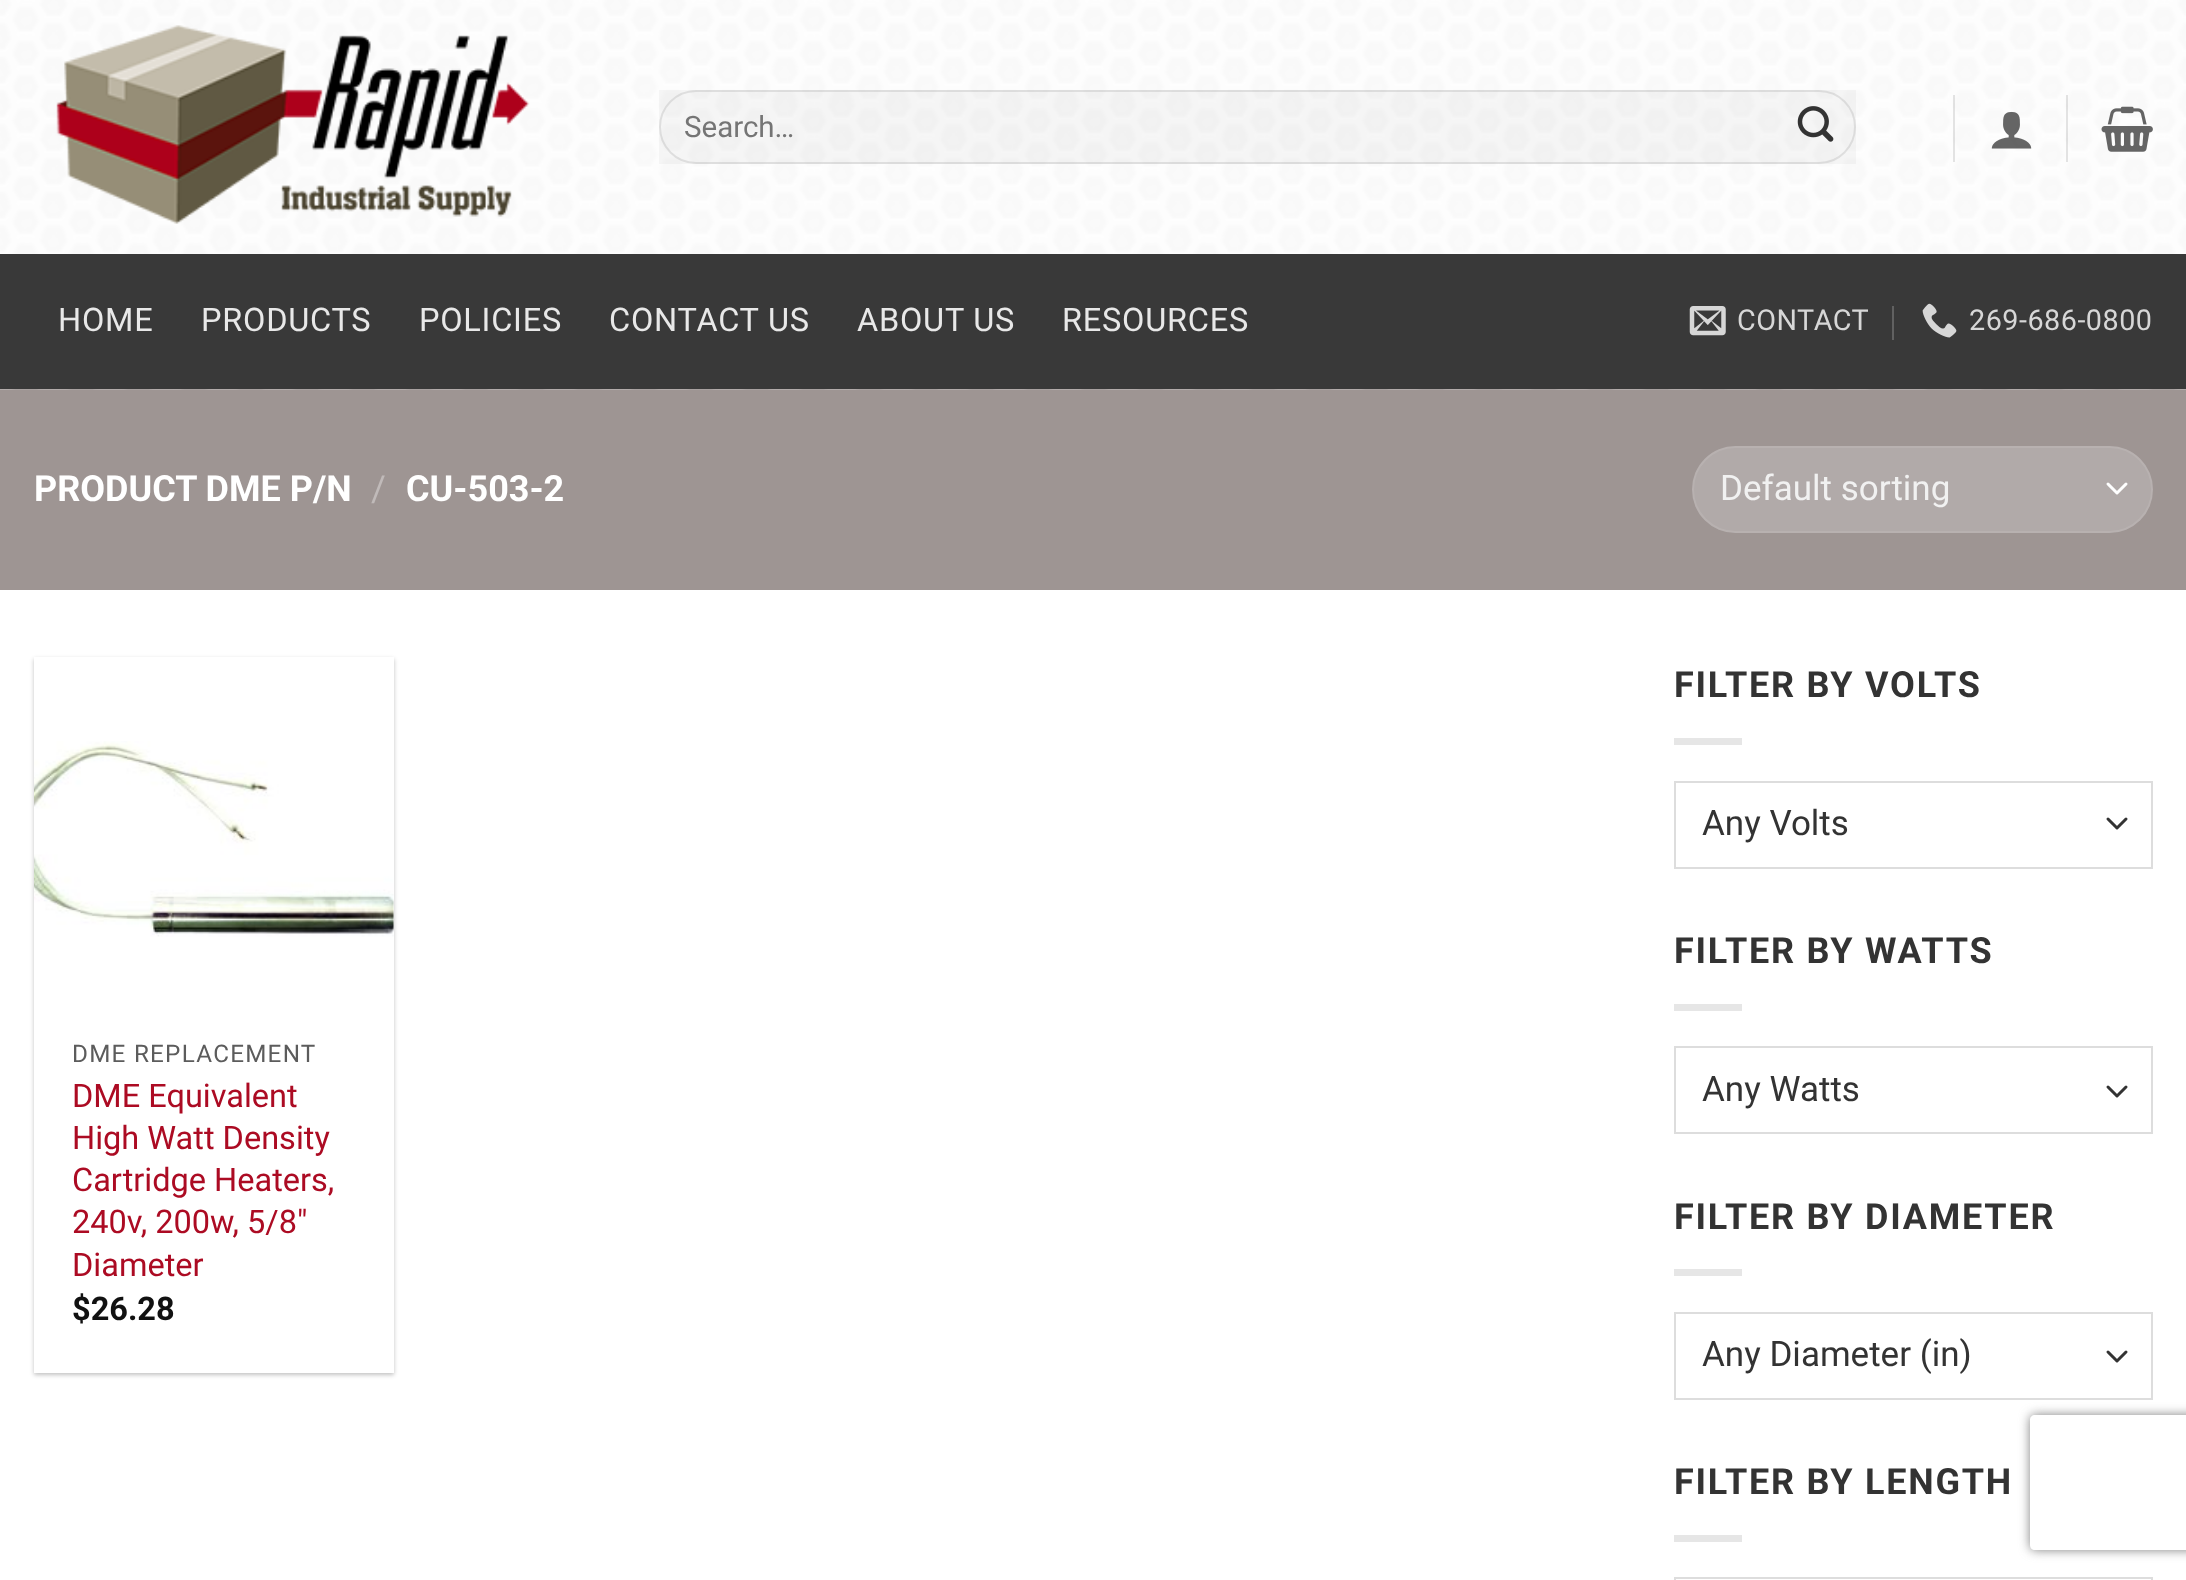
<!DOCTYPE html>
<meta charset="utf-8">
<style>body { margin: 0 } canvas { display: block }</style>
<canvas id="canvas" width="2186" height="1580"></canvas>
<img id="img1" src="images/1.png" hidden>
<img id="img2" src="images/2.png" hidden>
<img id="img3" src="images/3.png" hidden>
<img id="img4" src="images/4.png" hidden>
<img id="img5" src="images/5.png" hidden>
<img id="img6" src="images/6.png" hidden>
<img id="img7" src="images/7.png" hidden>
<img id="img8" src="images/8.png" hidden>
<script>
window.onload = function () {
    const canvas = document.getElementById('canvas');
    const context = canvas.getContext('2d');
    context.miterLimit = 4;
    context.fontKerning = 'normal';

    context.fillStyle = 'rgb(255, 255, 255)';
    context.fillRect(0, 0, 2186, 1580);
    context.fillStyle = 'rgb(158, 149, 147)';
    context.fillRect(0, 389, 2186, 201);
    context.drawImage(document.getElementById('img1'), 0, 0, 2186, 390);
    context.drawImage(document.getElementById('img2'), 56, 25, 474, 199);
    context.fillStyle = 'rgba(0, 0, 0, 0.03)';
    context.fillRect(659, 90, 1197, 74);
    context.beginPath();
    context.roundRect(660, 91, 1195, 72, 36);
    context.strokeStyle = 'rgba(0, 0, 0, 0.09)';
    context.lineWidth = 2;
    context.stroke();
    context.drawImage(document.getElementById('img3'), 1797, 106, 37, 36);
    context.fillStyle = 'rgba(0, 0, 0, 0.1)';
    context.fillRect(1953, 95, 2, 67);
    context.drawImage(document.getElementById('img4'), 1991, 111, 41, 38);
    context.fillRect(2066, 95, 2, 67);
    context.drawImage(document.getElementById('img5'), 2101, 106, 52, 46);
    context.fillStyle = 'rgb(57, 57, 57)';
    context.fillRect(0, 254, 2186, 135);
    context.drawImage(document.getElementById('img6'), 1689, 306, 37, 30);
    context.fillStyle = 'rgb(97, 97, 97)';
    context.fillRect(1892, 306, 2, 34);
    context.drawImage(document.getElementById('img7'), 1922, 303, 35, 35);
    context.fillStyle = 'rgb(177, 170, 169)';
    context.beginPath();
    context.roundRect(1692, 446, 461, 87, 43.5);
    context.fill();
    context.beginPath();
    context.moveTo(2108, 484);
    context.lineTo(2117, 493);
    context.lineTo(2126, 484);
    context.strokeStyle = 'rgb(255, 255, 255)';
    context.lineWidth = 3;
    context.lineCap = 'round';
    context.lineJoin = 'round';
    context.stroke();
    context.beginPath();
    context.roundRect(1693, 447, 459, 85, 42.5);
    context.strokeStyle = 'rgba(255, 255, 255, 0.09)';
    context.lineWidth = 2;
    context.lineJoin = 'miter';
    context.stroke();
    context.fillStyle = 'rgba(0, 0, 0, 0.24)';
    context.filter = 'blur(2px)';
    context.beginPath();
    context.rect(34, 659, 360, 716);
    context.fill();
    context.filter = 'none';
    context.fillStyle = 'rgb(255, 255, 255)';
    context.fillRect(34, 657, 360, 716);
    context.drawImage(document.getElementById('img8'), 34, 741, 360, 196);
    context.fillStyle = 'rgb(230, 230, 230)';
    context.fillRect(1674, 738, 68, 7);
    context.beginPath();
    context.moveTo(2108, 819);
    context.lineTo(2117, 828);
    context.lineTo(2126, 819);
    context.strokeStyle = 'rgb(51, 51, 51)';
    context.lineWidth = 3;
    context.lineJoin = 'round';
    context.stroke();
    context.strokeStyle = 'rgb(221, 221, 221)';
    context.lineWidth = 2;
    context.lineJoin = 'miter';
    context.strokeRect(1675, 782, 477, 86);
    context.fillRect(1674, 1004, 68, 7);
    context.beginPath();
    context.moveTo(2108, 1087);
    context.lineTo(2117, 1096);
    context.lineTo(2126, 1087);
    context.strokeStyle = 'rgb(51, 51, 51)';
    context.lineWidth = 3;
    context.lineJoin = 'round';
    context.stroke();
    context.strokeStyle = 'rgb(221, 221, 221)';
    context.lineWidth = 2;
    context.lineJoin = 'miter';
    context.strokeRect(1675, 1047, 477, 86);
    context.fillRect(1674, 1269, 68, 7);
    context.beginPath();
    context.moveTo(2108, 1352);
    context.lineTo(2117, 1361);
    context.lineTo(2126, 1352);
    context.strokeStyle = 'rgb(51, 51, 51)';
    context.lineWidth = 3;
    context.lineJoin = 'round';
    context.stroke();
    context.strokeStyle = 'rgb(221, 221, 221)';
    context.lineWidth = 2;
    context.lineJoin = 'miter';
    context.strokeRect(1675, 1313, 477, 86);
    context.fillRect(1674, 1535, 68, 7);
    context.strokeRect(1675, 1578, 477, 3);
    context.save();
    context.beginPath();
    context.moveTo(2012, 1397);
    context.lineTo(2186, 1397);
    context.lineTo(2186, 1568);
    context.lineTo(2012, 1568);
    context.closePath();
    context.moveTo(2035, 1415);
    context.lineTo(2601, 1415);
    context.bezierCurveTo(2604, 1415, 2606, 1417, 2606, 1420);
    context.lineTo(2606, 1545);
    context.bezierCurveTo(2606, 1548, 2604, 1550, 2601, 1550);
    context.lineTo(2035, 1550);
    context.bezierCurveTo(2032, 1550, 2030, 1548, 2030, 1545);
    context.lineTo(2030, 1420);
    context.bezierCurveTo(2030, 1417, 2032, 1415, 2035, 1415);
    context.closePath();
    context.clip('evenodd');
    context.fillStyle = 'rgb(128, 128, 128)';
    context.filter = 'blur(5.5px)';
    context.beginPath();
    context.roundRect(2030, 1415, 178, 135, 5);
    context.fill();
    context.filter = 'none';
    context.restore();
    context.font = '29.5px Roboto';
    context.fillStyle = 'rgb(117, 117, 117)';
    context.fillText('Search…', 684, 137);
    context.letterSpacing = '0.75px';
    context.font = '32.5px Roboto';
    context.fillStyle = 'rgb(232, 232, 232)';
    context.fillText('HOME', 58, 331);
    context.fillText('PRODUCTS', 201, 331);
    context.fillText('POLICIES', 419, 331);
    context.fillText('CONTACT US', 609, 331);
    context.fillText('ABOUT US', 857, 331);
    context.fillText('RESOURCES', 1062, 331);
    context.letterSpacing = '0.5px';
    context.font = '28.75px Roboto';
    context.fillStyle = 'rgb(215, 215, 215)';
    context.fillText('CONTACT', 1737, 330);
    context.fillText('269-686-0800', 1969, 330);
    context.letterSpacing = '0px';
    context.font = 'bold 36px Roboto';
    context.fillStyle = 'rgb(255, 255, 255)';
    context.fillText('PRODUCT DME P/N', 34, 501);
    context.font = '36px Roboto';
    context.fillStyle = 'rgb(192, 186, 185)';
    context.fillText('/', 371, 501);
    context.font = 'bold 36px Roboto';
    context.fillStyle = 'rgb(255, 255, 255)';
    context.fillText('CU-503-2', 406, 501);
    context.font = '35px Roboto';
    context.fillStyle = 'rgb(241, 241, 241)';
    context.fillText('Default sorting', 1720, 500);
    context.letterSpacing = '1.25px';
    context.font = '24.25px Roboto';
    context.fillStyle = 'rgb(92, 92, 92)';
    context.fillText('DME REPLACEMENT', 72, 1062);
    context.letterSpacing = '0px';
    context.font = '32.5px Roboto';
    context.fillStyle = 'rgb(172, 11, 35)';
    context.fillText('DME Equivalent', 72, 1107);
    context.fillText('High Watt Density', 72, 1149);
    context.fillText('Cartridge Heaters,', 72, 1191);
    context.fillText('240v, 200w, 5/8"', 72, 1233);
    context.fillText('Diameter', 72, 1276);
    context.font = 'bold 32.5px Roboto';
    context.fillStyle = 'rgb(17, 17, 17)';
    context.fillText('$26.28', 72, 1320);
    context.letterSpacing = '1.75px';
    context.font = 'bold 36px Roboto';
    context.fillStyle = 'rgb(51, 51, 51)';
    context.fillText('FILTER BY VOLTS', 1674, 697);
    context.letterSpacing = '0px';
    context.font = '35px Roboto';
    context.fillText('Any Volts', 1702, 835);
    context.letterSpacing = '1.75px';
    context.font = 'bold 36px Roboto';
    context.fillText('FILTER BY WATTS', 1674, 963);
    context.letterSpacing = '0px';
    context.font = '35px Roboto';
    context.fillText('Any Watts', 1702, 1101);
    context.letterSpacing = '1.75px';
    context.font = 'bold 36px Roboto';
    context.fillText('FILTER BY DIAMETER', 1674, 1229);
    context.letterSpacing = '0px';
    context.font = '35px Roboto';
    context.fillText('Any Diameter (in)', 1702, 1366);
    context.letterSpacing = '1.75px';
    context.font = 'bold 36px Roboto';
    context.fillText('FILTER BY LENGTH', 1674, 1494);
};
</script>
